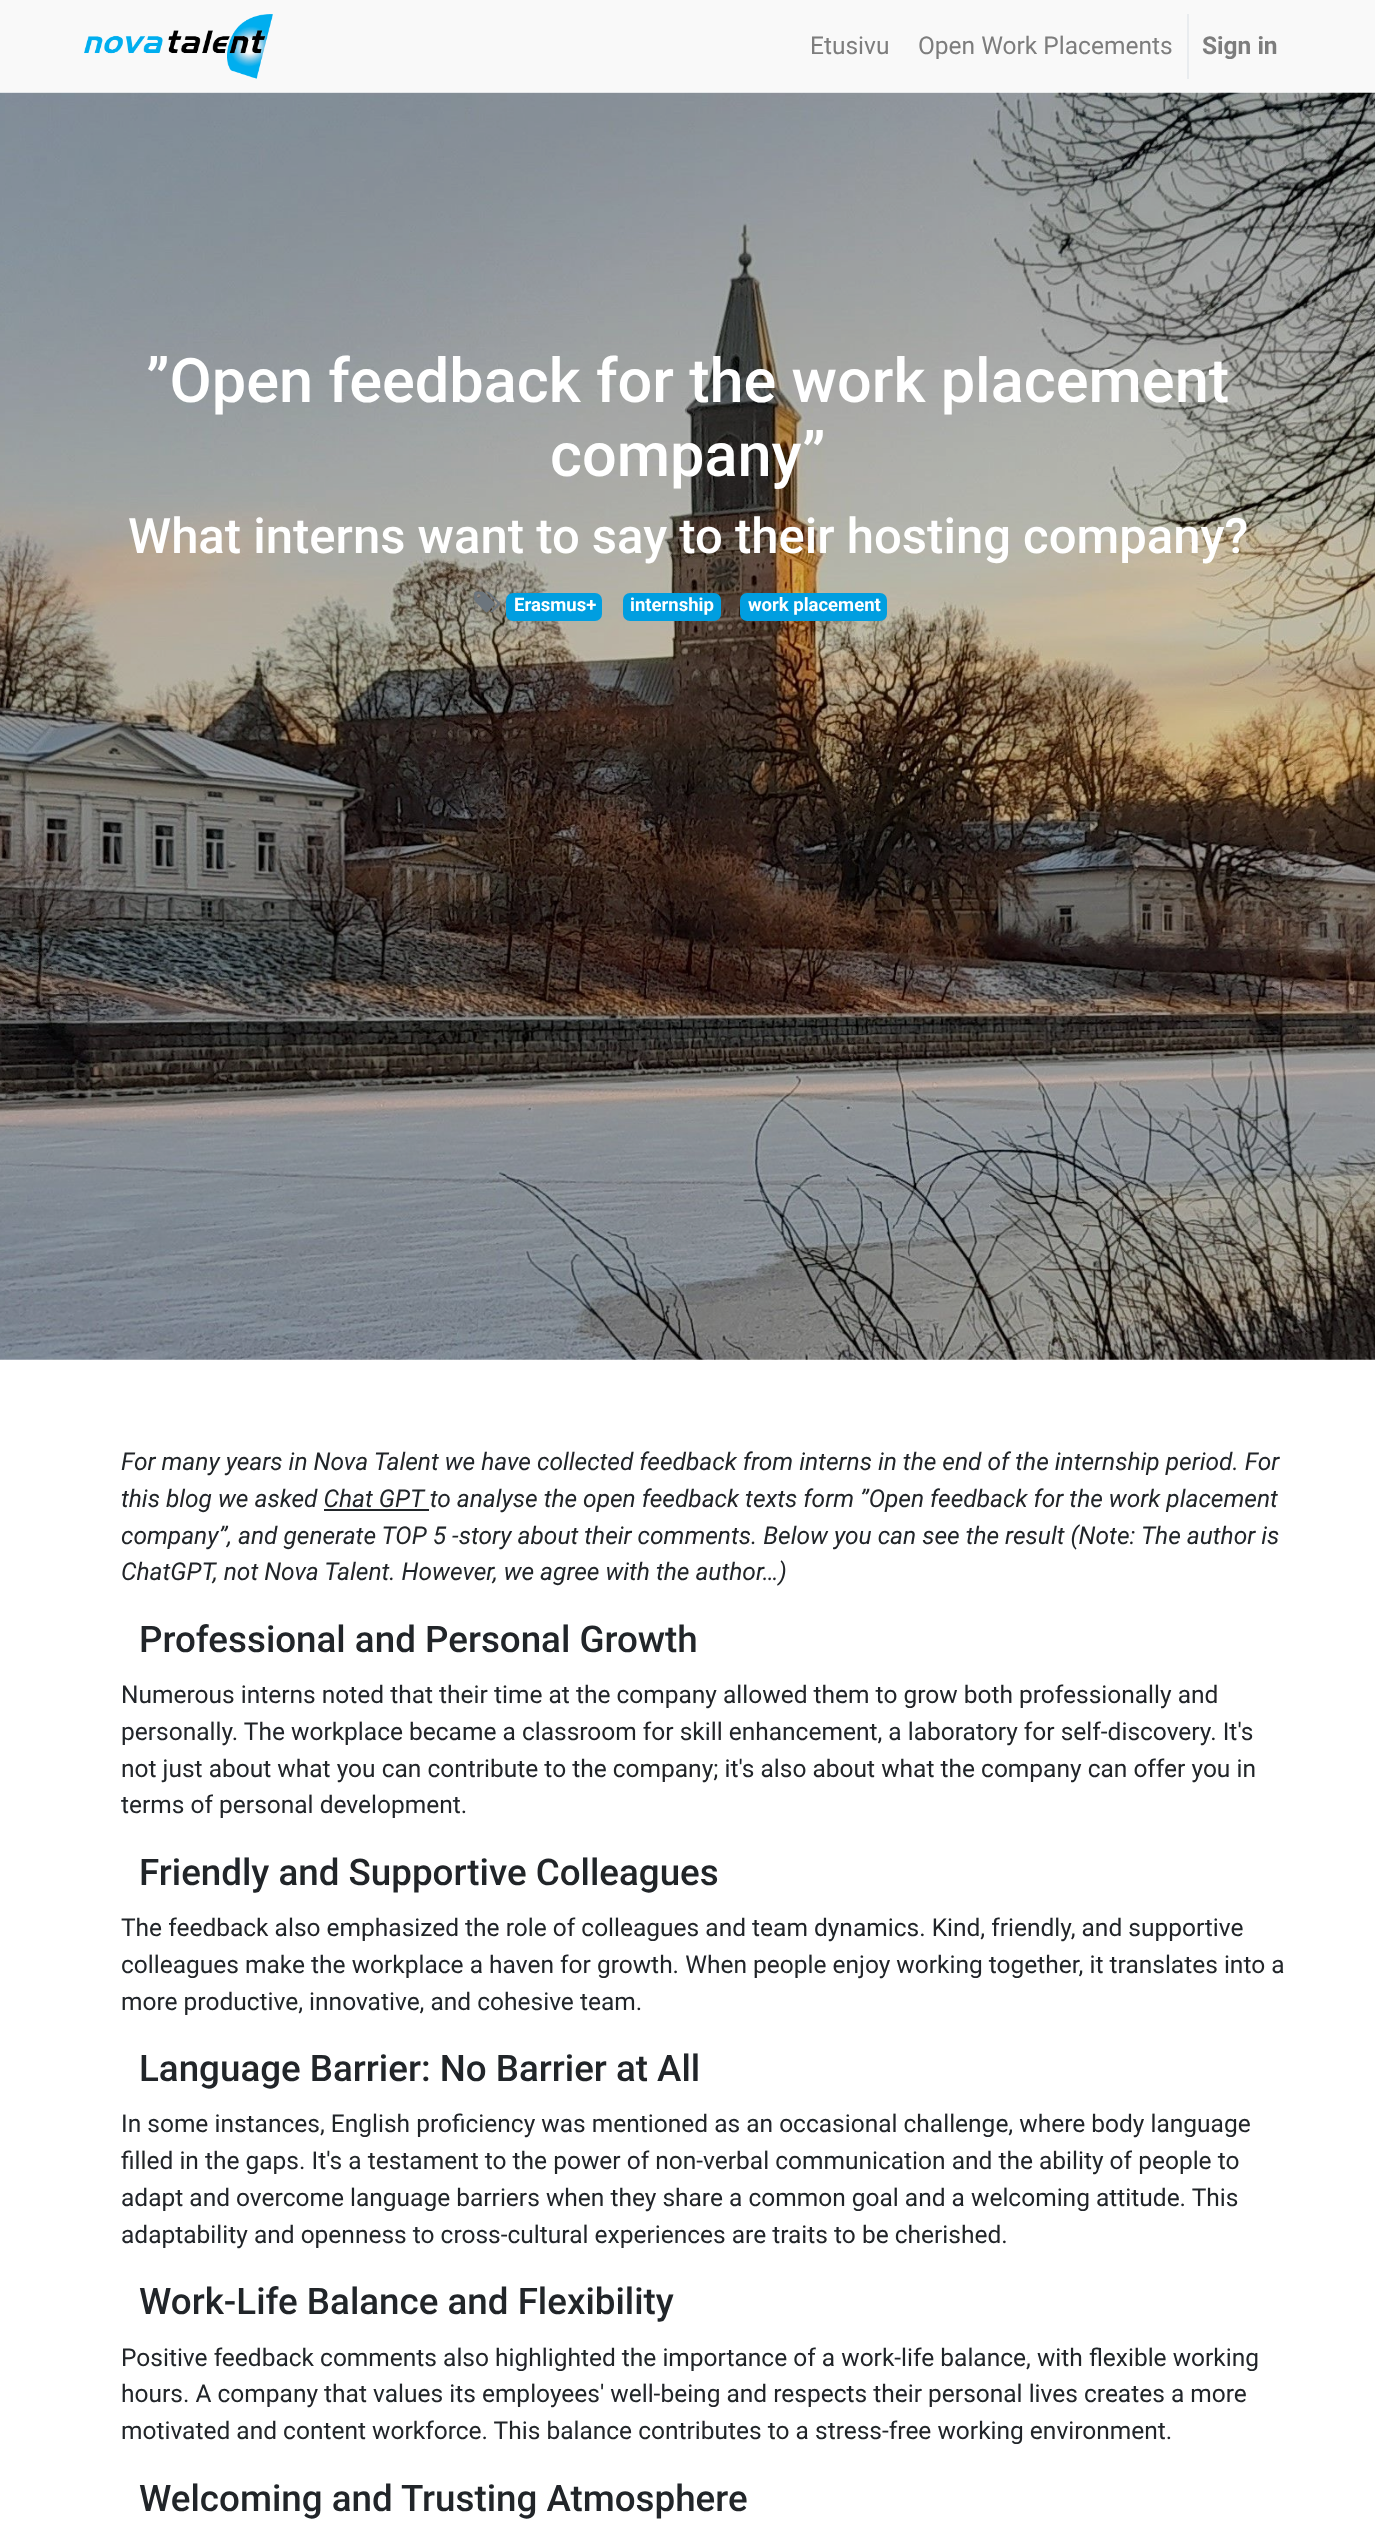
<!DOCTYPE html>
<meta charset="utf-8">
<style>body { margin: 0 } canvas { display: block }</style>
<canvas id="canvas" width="1375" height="2534"></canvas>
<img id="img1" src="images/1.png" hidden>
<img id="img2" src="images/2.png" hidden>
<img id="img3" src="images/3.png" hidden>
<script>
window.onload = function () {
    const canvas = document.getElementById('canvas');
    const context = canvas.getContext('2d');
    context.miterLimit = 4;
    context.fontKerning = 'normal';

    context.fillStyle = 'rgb(255, 255, 255)';
    context.fillRect(0, 0, 1375, 2534);
    context.fillStyle = 'rgb(249, 249, 249)';
    context.fillRect(0, 0, 1375, 93);
    context.drawImage(document.getElementById('img1'), 84, 14, 189, 65);
    context.fillStyle = 'rgb(233, 236, 239)';
    context.fillRect(1187, 14, 2, 65);
    context.drawImage(document.getElementById('img2'), 0, 92, 1375, 1268);
    context.drawImage(document.getElementById('img3'), 474, 591, 27, 22);
    context.fillStyle = 'rgb(0, 158, 224)';
    context.beginPath();
    context.roundRect(506, 593, 96, 28, 7);
    context.fill();
    context.beginPath();
    context.roundRect(623, 593, 98, 28, 7);
    context.fill();
    context.beginPath();
    context.roundRect(740, 593, 147, 28, 7);
    context.fill();
    context.fillStyle = 'rgb(33, 37, 41)';
    context.fillRect(324, 1509, 105, 2);
    context.font = '24.5px Roboto';
    context.fillStyle = 'rgb(125, 125, 125)';
    context.fillText('Etusivu', 810, 54);
    context.fillText('Open Work Placements', 918, 54);
    context.font = 'bold 24.5px Roboto';
    context.fillText('Sign in', 1202, 54);
    context.font = '500 61.25px Roboto';
    context.fillStyle = 'rgb(255, 255, 255)';
    context.fillText('”Open feedback for the work placement', 146, 402);
    context.fillText('company”', 550, 476);
    context.font = '500 49px Roboto';
    context.fillText('What interns want to say to their hosting company?', 128, 553);
    context.font = 'bold 18.5px Roboto';
    context.fillText('Erasmus+', 514, 611);
    context.fillText('internship', 630, 611);
    context.fillText('work placement', 748, 611);
    context.font = 'italic 24.5px Roboto';
    context.fillStyle = 'rgb(33, 37, 41)';
    context.fillText('For many years in Nova Talent we have collected feedback from interns in the end of the internship period. For', 121, 1470);
    context.fillText('this blog we asked Chat GPT to analyse the open feedback texts form ”Open feedback for the work placement', 121, 1507);
    context.fillText('company”, and generate TOP 5 -story about their comments. Below you can see the result (Note: The author is', 121, 1544);
    context.fillText('ChatGPT, not Nova Talent. However, we agree with the author…)', 121, 1580);
    context.font = '500 36.75px Roboto';
    context.fillText('Professional and Personal Growth', 139, 1652);
    context.font = '24.5px Roboto';
    context.fillText('Numerous interns noted that their time at the company allowed them to grow both professionally and', 121, 1703);
    context.fillText('personally. The workplace became a classroom for skill enhancement, a laboratory for self-discovery. It\'s', 121, 1740);
    context.fillText('not just about what you can contribute to the company; it\'s also about what the company can offer you in', 121, 1777);
    context.fillText('terms of personal development.', 121, 1813);
    context.font = '500 36.75px Roboto';
    context.fillText('Friendly and Supportive Colleagues', 139, 1885);
    context.font = '24.5px Roboto';
    context.fillText('The feedback also emphasized the role of colleagues and team dynamics. Kind, friendly, and supportive', 121, 1936);
    context.fillText('colleagues make the workplace a haven for growth. When people enjoy working together, it translates into a', 121, 1973);
    context.fillText('more productive, innovative, and cohesive team.', 121, 2010);
    context.font = '500 36.75px Roboto';
    context.fillText('Language Barrier: No Barrier at All', 139, 2081);
    context.font = '24.5px Roboto';
    context.fillText('In some instances, English proficiency was mentioned as an occasional challenge, where body language', 121, 2132);
    context.fillText('filled in the gaps. It\'s a testament to the power of non-verbal communication and the ability of people to', 121, 2169);
    context.fillText('adapt and overcome language barriers when they share a common goal and a welcoming attitude. This', 121, 2206);
    context.fillText('adaptability and openness to cross-cultural experiences are traits to be cherished.', 121, 2243);
    context.font = '500 36.75px Roboto';
    context.fillText('Work-Life Balance and Flexibility', 139, 2314);
    context.font = '24.5px Roboto';
    context.fillText('Positive feedback comments also highlighted the importance of a work-life balance, with flexible working', 121, 2366);
    context.fillText('hours. A company that values its employees\' well-being and respects their personal lives creates a more', 121, 2402);
    context.fillText('motivated and content workforce. This balance contributes to a stress-free working environment.', 121, 2439);
    context.font = '500 36.75px Roboto';
    context.fillText('Welcoming and Trusting Atmosphere', 139, 2511);
};
</script>
